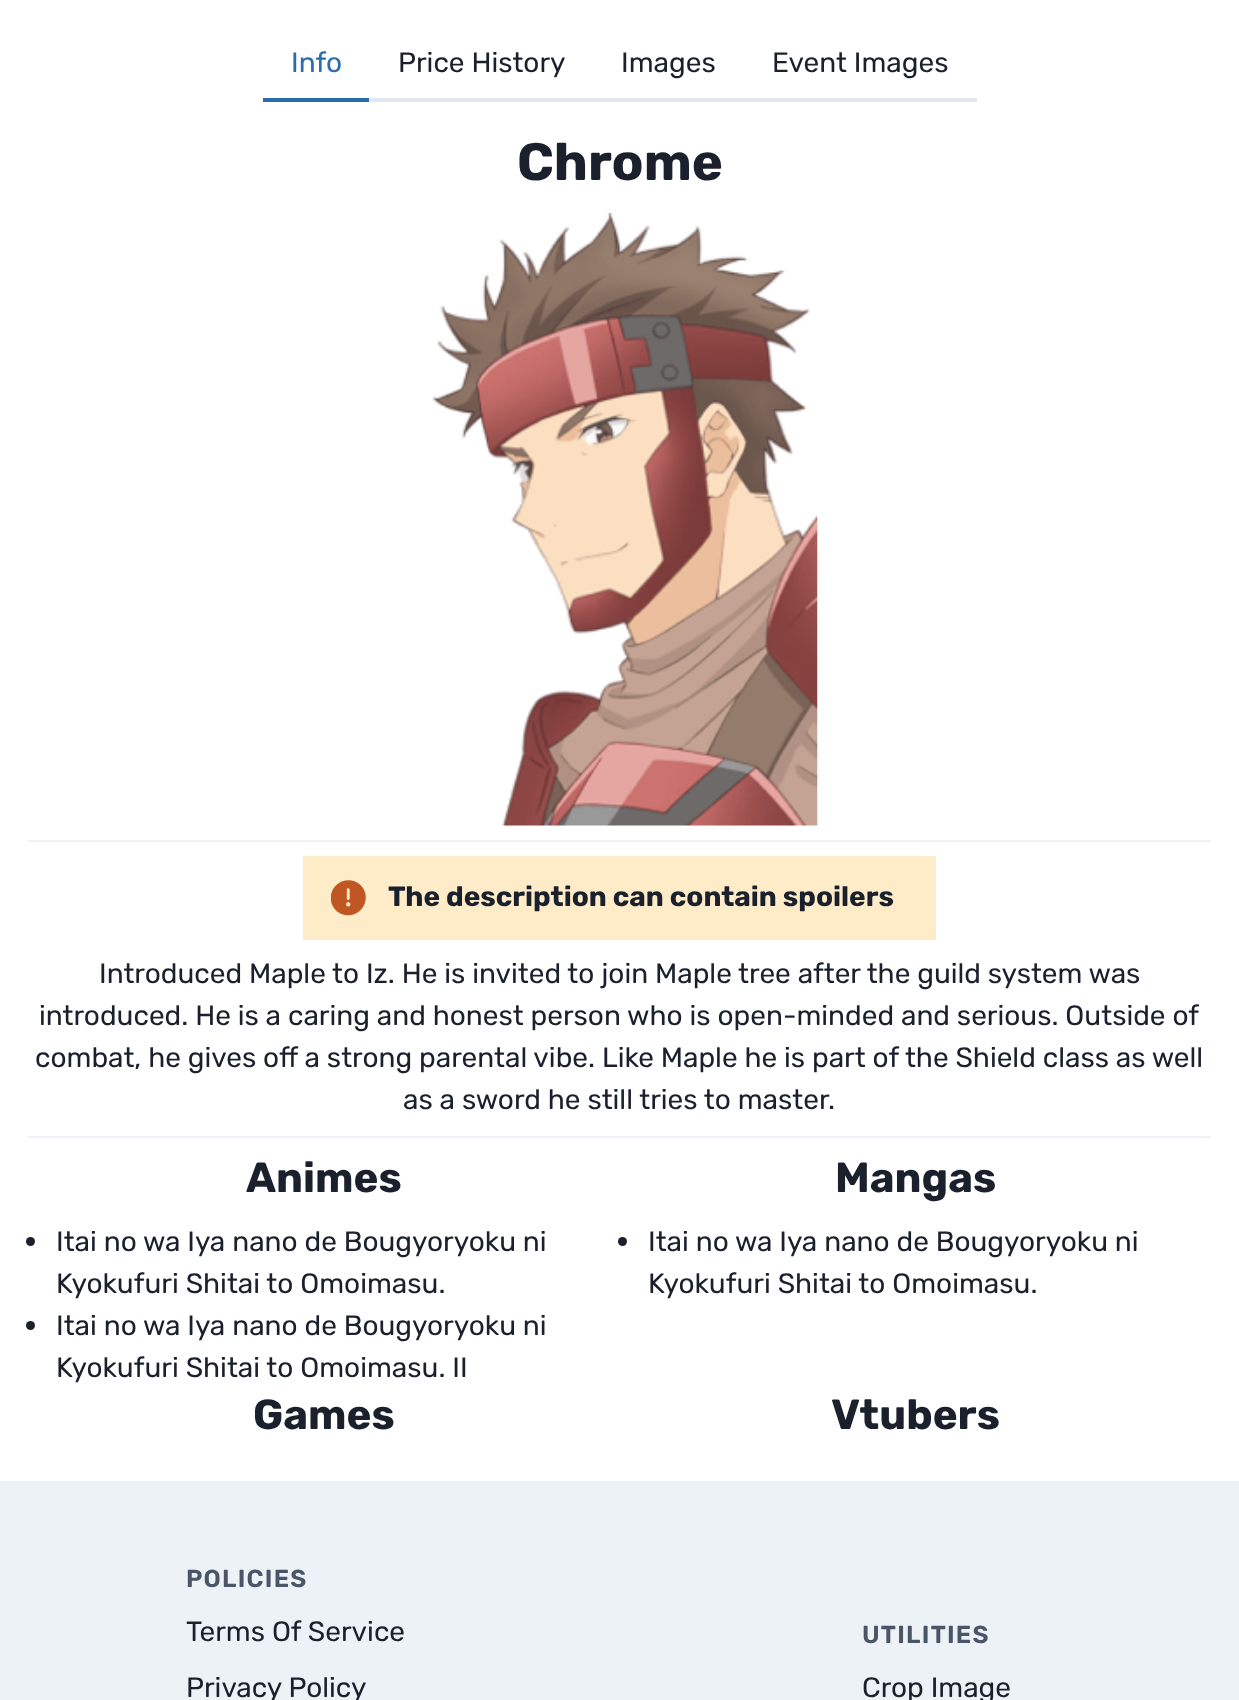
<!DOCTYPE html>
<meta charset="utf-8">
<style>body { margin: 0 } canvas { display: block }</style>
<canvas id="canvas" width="1239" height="1700"></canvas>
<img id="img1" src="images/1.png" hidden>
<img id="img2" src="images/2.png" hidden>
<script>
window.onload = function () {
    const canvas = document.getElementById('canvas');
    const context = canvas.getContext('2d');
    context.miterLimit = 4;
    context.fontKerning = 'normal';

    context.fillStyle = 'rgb(255, 255, 255)';
    context.fillRect(0, 0, 1239, 1700);
    context.fillStyle = 'rgb(226, 232, 240)';
    context.fillRect(369, 98, 608, 4);
    context.fillStyle = 'rgb(43, 108, 176)';
    context.fillRect(263, 98, 106, 4);
    context.drawImage(document.getElementById('img1'), 432, 213, 386, 613);
    context.fillStyle = 'rgb(238, 241, 246)';
    context.fillRect(28, 840, 1183, 2);
    context.fillStyle = 'rgb(254, 235, 200)';
    context.fillRect(303, 856, 633, 84);
    context.drawImage(document.getElementById('img2'), 331, 880, 35, 36);
    context.fillStyle = 'rgb(238, 241, 246)';
    context.fillRect(28, 1136, 1183, 2);
    context.fillStyle = 'rgb(26, 32, 44)';
    context.beginPath();
    context.arc(30.5, 1241.5, 4.5, 0, 2 * Math.PI);
    context.fill();
    context.beginPath();
    context.arc(30.5, 1325.5, 4.5, 0, 2 * Math.PI);
    context.fill();
    context.beginPath();
    context.arc(622.5, 1241.5, 4.5, 0, 2 * Math.PI);
    context.fill();
    context.fillStyle = 'rgb(237, 242, 247)';
    context.fillRect(0, 1481, 1239, 219);
    context.font = '28px Rubik';
    context.fillStyle = 'rgb(43, 108, 176)';
    context.fillText('Info', 291, 72);
    context.fillStyle = 'rgb(26, 32, 44)';
    context.fillText('Price History', 398, 72);
    context.fillText('Images', 621, 72);
    context.fillText('Event Images', 772, 72);
    context.font = 'bold 52.5px Rubik';
    context.fillText('Chrome', 517, 180);
    context.font = 'bold 28px Rubik';
    context.fillText('The description can contain spoilers', 388, 906);
    context.font = '28px Rubik';
    context.fillText('Introduced Maple', 99, 983);
    context.fillText('to Iz. He is invited to join Maple tree after the guild system was', 332, 983);
    context.fillText('introduced. He is a caring and honest person who is open-minded and serious. Outside of', 39, 1025);
    context.fillText('combat, he gives off a strong parental vibe. Like Maple he is part of the Shield class as well', 35, 1067);
    context.fillText('as a sword he still tries to master.', 403, 1109);
    context.font = 'bold 42px Rubik';
    context.fillText('Animes', 246, 1192);
    context.font = '28px Rubik';
    context.fillText('Itai no wa Iya nano de Bougyoryoku ni', 56, 1251);
    context.fillText('Kyokufuri Shitai to Omoimasu.', 56, 1293);
    context.fillText('Itai no wa Iya nano de Bougyoryoku ni', 56, 1335);
    context.fillText('Kyokufuri Shitai to Omoimasu. II', 56, 1377);
    context.font = 'bold 42px Rubik';
    context.fillText('Mangas', 835, 1192);
    context.font = '28px Rubik';
    context.fillText('Itai no wa Iya nano de Bougyoryoku ni', 648, 1251);
    context.fillText('Kyokufuri Shitai to Omoimasu.', 648, 1293);
    context.font = 'bold 42px Rubik';
    context.fillText('Games', 253, 1429);
    context.fillText('Vtubers', 831, 1429);
    context.letterSpacing = '1.25px';
    context.font = '600 24.5px Rubik';
    context.fillStyle = 'rgb(74, 85, 104)';
    context.fillText('POLICIES', 186, 1587);
    context.letterSpacing = '0px';
    context.font = '28px Rubik';
    context.fillStyle = 'rgb(26, 32, 44)';
    context.fillText('Terms Of Service', 186, 1641);
    context.fillText('Privacy Policy', 186, 1697);
    context.letterSpacing = '1.25px';
    context.font = '600 24.5px Rubik';
    context.fillStyle = 'rgb(74, 85, 104)';
    context.fillText('UTILITIES', 862, 1643);
    context.letterSpacing = '0px';
    context.font = '28px Rubik';
    context.fillStyle = 'rgb(26, 32, 44)';
    context.fillText('Crop Image', 862, 1697);
};
</script>
